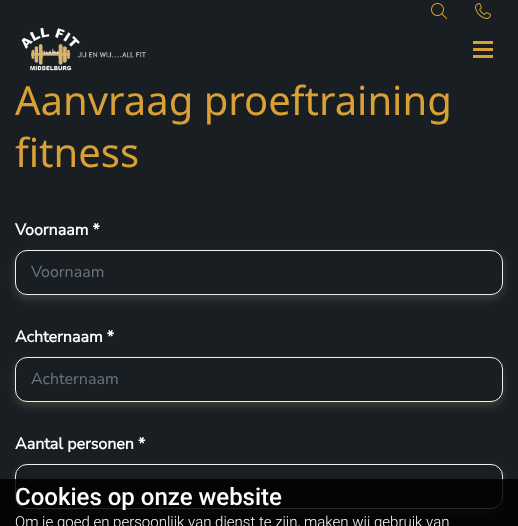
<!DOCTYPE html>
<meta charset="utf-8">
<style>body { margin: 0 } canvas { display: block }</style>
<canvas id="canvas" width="518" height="526"></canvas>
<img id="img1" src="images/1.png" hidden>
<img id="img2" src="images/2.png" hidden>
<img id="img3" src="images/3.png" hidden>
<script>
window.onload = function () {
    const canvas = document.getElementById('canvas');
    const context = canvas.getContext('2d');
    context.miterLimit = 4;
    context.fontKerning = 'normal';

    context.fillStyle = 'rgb(25, 30, 35)';
    context.fillRect(0, 0, 518, 526);
    context.drawImage(document.getElementById('img1'), 431, 3, 16, 16);
    context.drawImage(document.getElementById('img2'), 475, 3, 16, 16);
    context.drawImage(document.getElementById('img3'), 21, 27, 125, 44);
    context.fillStyle = 'rgb(217, 160, 53)';
    context.fillRect(473, 48, 20, 3);
    context.fillRect(473, 41, 20, 3);
    context.fillRect(473, 55, 20, 3);
    context.fillStyle = 'rgba(227, 187, 130, 0.2)';
    context.filter = 'blur(5px)';
    context.beginPath();
    context.roundRect(15, 254, 488, 45, 12);
    context.fill();
    context.filter = 'none';
    context.fillStyle = 'rgb(25, 30, 35)';
    context.beginPath();
    context.roundRect(15.5, 250.5, 487, 44, 11.5);
    context.fill();
    context.strokeStyle = 'rgb(239, 239, 239)';
    context.stroke();
    context.fillStyle = 'rgba(227, 187, 130, 0.2)';
    context.filter = 'blur(5px)';
    context.beginPath();
    context.roundRect(15, 361, 488, 45, 12);
    context.fill();
    context.filter = 'none';
    context.fillStyle = 'rgb(25, 30, 35)';
    context.beginPath();
    context.roundRect(15.5, 357.5, 487, 44, 11.5);
    context.fill();
    context.stroke();
    context.fillStyle = 'rgba(227, 187, 130, 0.2)';
    context.filter = 'blur(5px)';
    context.beginPath();
    context.roundRect(15, 468, 488, 45, 12);
    context.fill();
    context.filter = 'none';
    context.fillStyle = 'rgb(25, 30, 35)';
    context.beginPath();
    context.roundRect(15.5, 464.5, 487, 44, 11.5);
    context.fill();
    context.stroke();
    context.fillStyle = 'rgba(0, 0, 0, 0.85)';
    context.fillRect(0, 479, 518, 47);
    context.font = '40px Noto Sans';
    context.fillStyle = 'rgb(217, 160, 53)';
    context.fillText('Aanvraag proeftraining', 15, 115);
    context.fillText('fitness', 15, 167);
    context.font = 'bold 16px Nunito Sans';
    context.fillStyle = 'rgb(254, 254, 254)';
    context.fillText('Voornaam *', 15, 235);
    context.font = '200 16px Nunito Sans';
    context.fillStyle = 'rgb(108, 117, 125)';
    context.fillText('Voornaam', 31, 277);
    context.font = 'bold 16px Nunito Sans';
    context.fillStyle = 'rgb(254, 254, 254)';
    context.fillText('Achternaam *', 15, 342);
    context.font = '200 16px Nunito Sans';
    context.fillStyle = 'rgb(108, 117, 125)';
    context.fillText('Achternaam', 31, 384);
    context.font = 'bold 16px Nunito Sans';
    context.fillStyle = 'rgb(254, 254, 254)';
    context.fillText('Aantal personen *', 15, 449);
    context.font = '500 24px Roboto';
    context.fillText('Cookies op onze website', 15, 505);
    context.font = '300 15px Roboto';
    context.fillText('Om je goed en persoonlijk van dienst te zijn, maken wij gebruik van', 15, 527);
};
</script>
